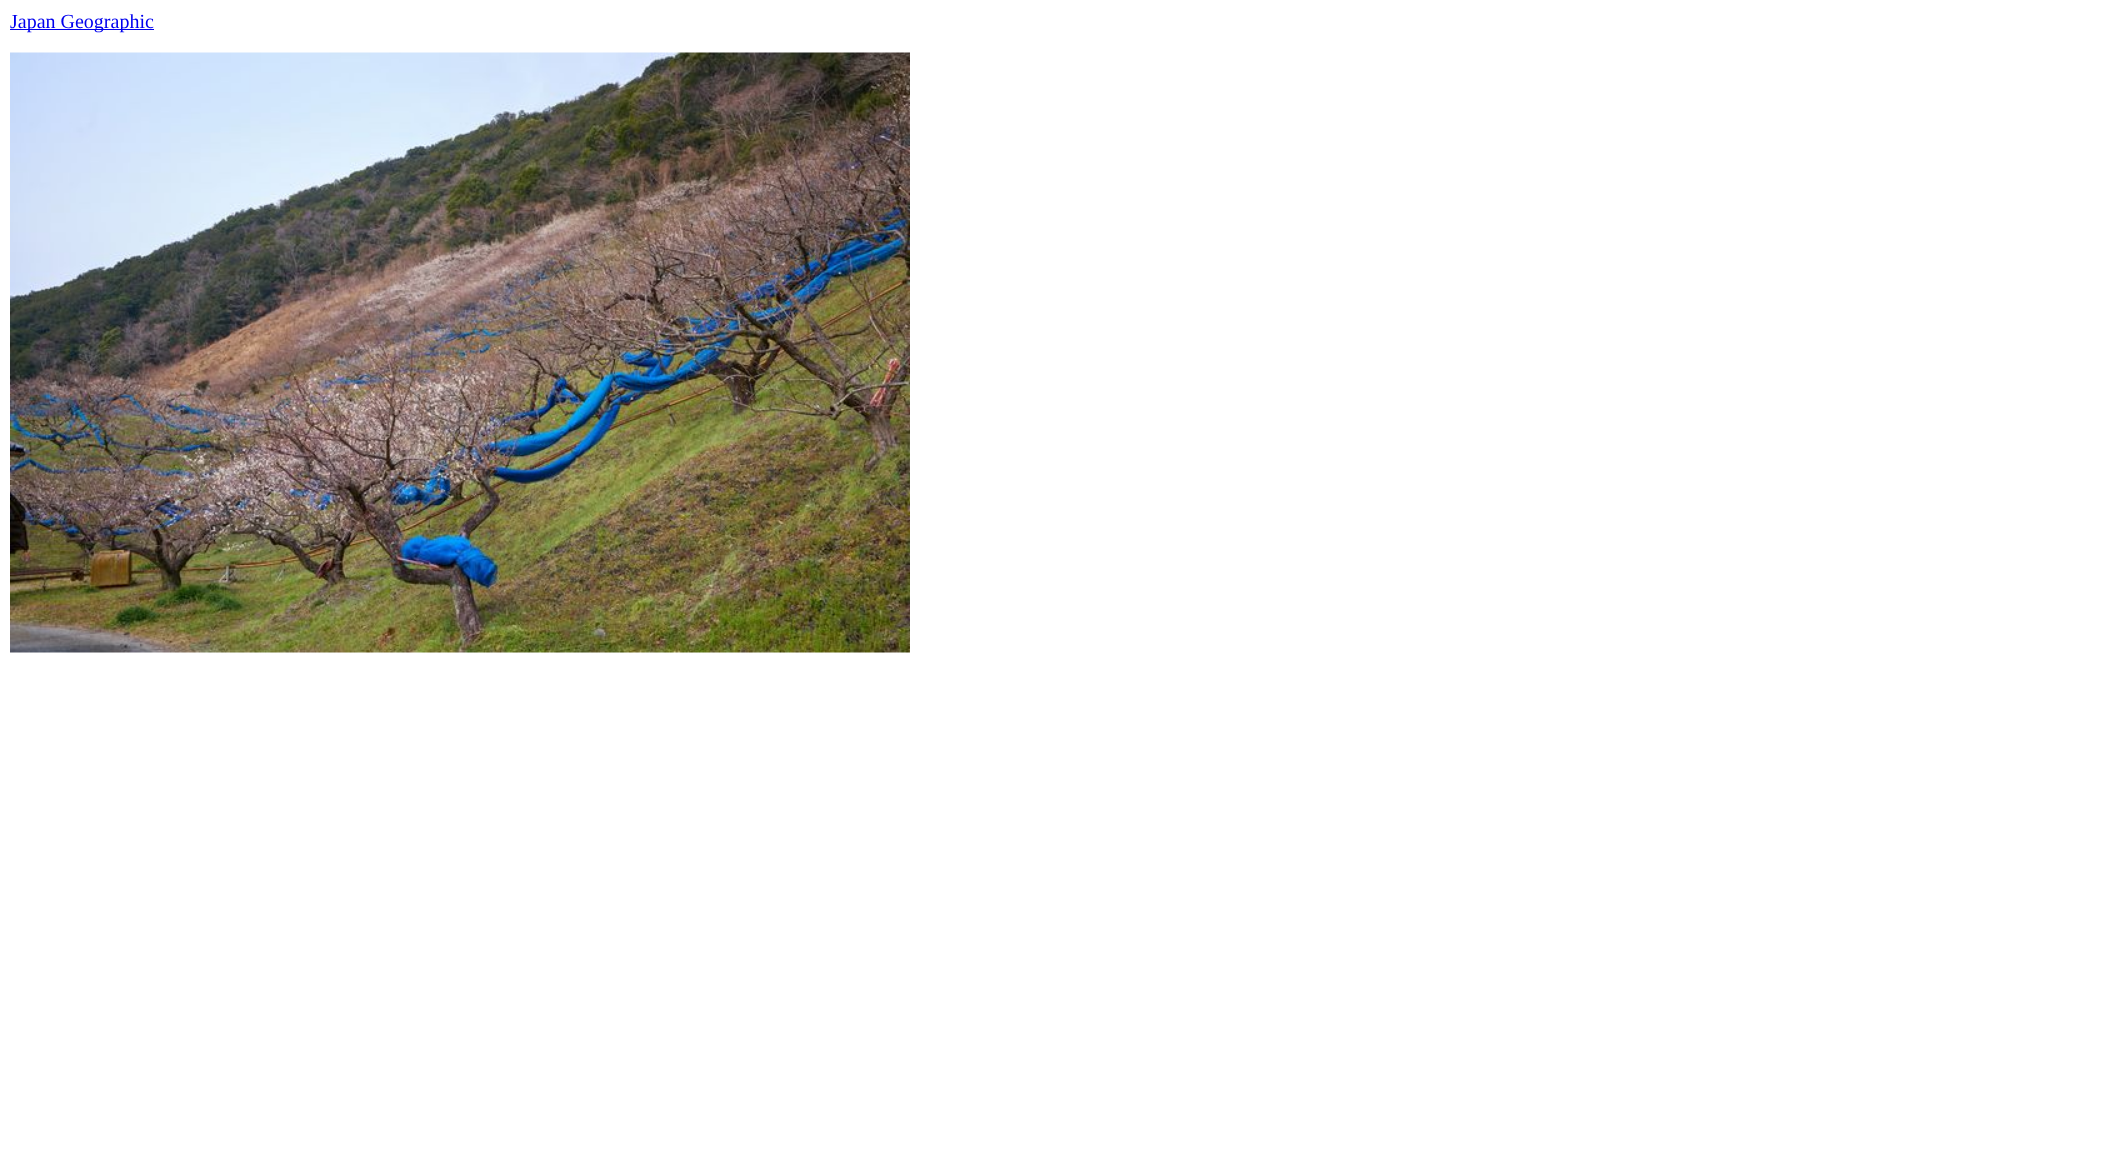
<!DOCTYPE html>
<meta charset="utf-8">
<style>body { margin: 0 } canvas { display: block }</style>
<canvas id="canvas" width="2103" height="1165"></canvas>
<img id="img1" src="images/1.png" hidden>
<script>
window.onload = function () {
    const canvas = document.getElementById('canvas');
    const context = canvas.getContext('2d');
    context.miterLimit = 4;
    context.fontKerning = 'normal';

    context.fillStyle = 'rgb(255, 255, 255)';
    context.fillRect(0, 0, 2103, 1165);
    context.fillStyle = 'rgb(0, 0, 238)';
    context.fillRect(10, 29, 144, 1);
    context.drawImage(document.getElementById('img1'), 10, 52, 900, 601);
    context.font = '20px Liberation Serif';
    context.fillText('Japan Geographic', 10, 28);
};
</script>
